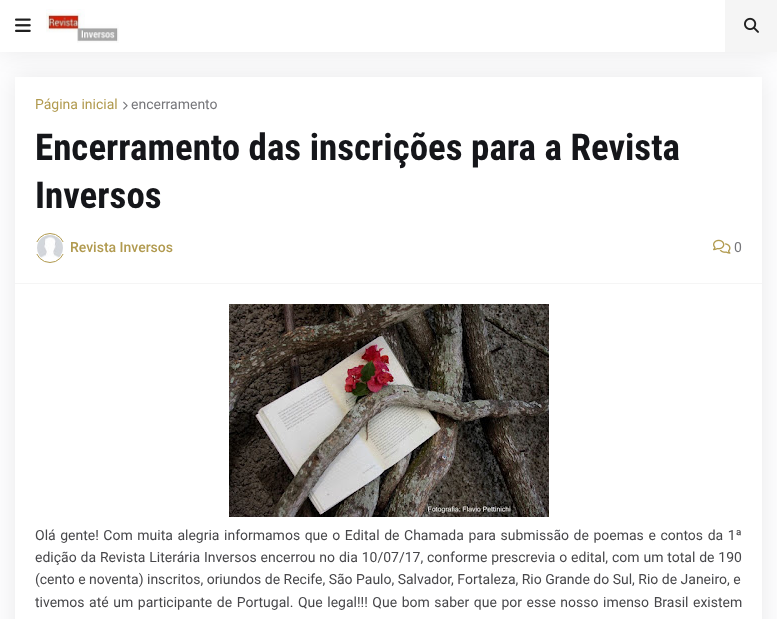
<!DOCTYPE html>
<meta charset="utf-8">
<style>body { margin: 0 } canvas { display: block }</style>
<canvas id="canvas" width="777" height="619"></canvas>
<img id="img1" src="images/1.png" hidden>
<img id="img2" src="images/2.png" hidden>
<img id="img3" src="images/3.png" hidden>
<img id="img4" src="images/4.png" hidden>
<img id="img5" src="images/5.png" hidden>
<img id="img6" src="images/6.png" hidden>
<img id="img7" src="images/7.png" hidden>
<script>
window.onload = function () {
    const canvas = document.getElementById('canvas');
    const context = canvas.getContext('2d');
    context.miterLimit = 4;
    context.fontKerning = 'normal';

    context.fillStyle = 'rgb(253, 253, 254)';
    context.fillRect(0, 0, 777, 619);
    context.fillStyle = 'rgba(0, 0, 0, 0.08)';
    context.filter = 'blur(12.5px)';
    context.beginPath();
    context.rect(15, 77, 747, 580);
    context.fill();
    context.filter = 'none';
    context.fillStyle = 'rgb(255, 255, 255)';
    context.fillRect(15, 77, 747, 542);
    context.fillStyle = 'rgba(0, 0, 0, 0.08)';
    context.filter = 'blur(12.5px)';
    context.beginPath();
    context.rect(0, 0, 777, 52);
    context.fill();
    context.filter = 'none';
    context.fillStyle = 'rgb(255, 255, 255)';
    context.fillRect(0, 0, 725, 52);
    context.drawImage(document.getElementById('img1'), 15, 18, 16, 14);
    context.drawImage(document.getElementById('img2'), 46, 9, 73, 34);
    context.fillStyle = 'rgb(245, 245, 245)';
    context.fillRect(725, 0, 52, 52);
    context.drawImage(document.getElementById('img3'), 744, 17, 15, 16);
    context.fillRect(15, 283, 747, 1);
    context.drawImage(document.getElementById('img4'), 123, 101, 5, 9);
    context.beginPath();
    context.arc(50, 248, 14.5, 0, 2 * Math.PI);
    context.strokeStyle = 'rgb(177, 154, 79)';
    context.stroke();
    context.fillStyle = 'rgb(255, 255, 255)';
    context.fillRect(35, 242, 30, 12);
    context.drawImage(document.getElementById('img5'), 37, 235, 26, 23);
    context.drawImage(document.getElementById('img6'), 713, 239, 18, 15);
    context.drawImage(document.getElementById('img7'), 229, 304, 320, 213);
    context.font = '14px Roboto';
    context.fillStyle = 'rgb(177, 154, 79)';
    context.fillText('Página inicial', 35, 109);
    context.fillStyle = 'rgb(118, 118, 122)';
    context.fillText('encerramento', 131, 109);
    context.font = 'bold 37px Roboto Condensed';
    context.fillStyle = 'rgb(21, 22, 26)';
    context.fillText('Encerramento das inscrições para a Revista', 35, 160);
    context.fillText('Inversos', 35, 208);
    context.font = '500 14px Roboto';
    context.fillStyle = 'rgb(177, 154, 79)';
    context.fillText('Revista Inversos', 70, 252);
    context.font = '14px Roboto';
    context.fillStyle = 'rgb(118, 118, 122)';
    context.fillText('0', 734, 252);
    context.wordSpacing = '1.1px';
    context.fillStyle = 'rgb(71, 71, 74)';
    context.fillText('Olá gente! Com muita alegria informamos que o Edital de Chamada para submissão de poemas e contos da 1ª', 35, 540);
    context.wordSpacing = '0.4px';
    context.fillText('edição da Revista Literária Inversos encerrou no dia 10/07/17, conforme prescrevia o edital, com um total de 190', 35, 562);
    context.wordSpacing = '0px';
    context.fillText('(cento e noventa) inscritos, oriundos de Recife, São Paulo, Salvador, Fortaleza, Rio Grande do Sul, Rio de Janeiro, e', 35, 584);
    context.wordSpacing = '1.1px';
    context.fillText('tivemos até um participante de Portugal. Que legal!!! Que bom saber que por esse nosso imenso Brasil existem', 35, 607);
};
</script>
